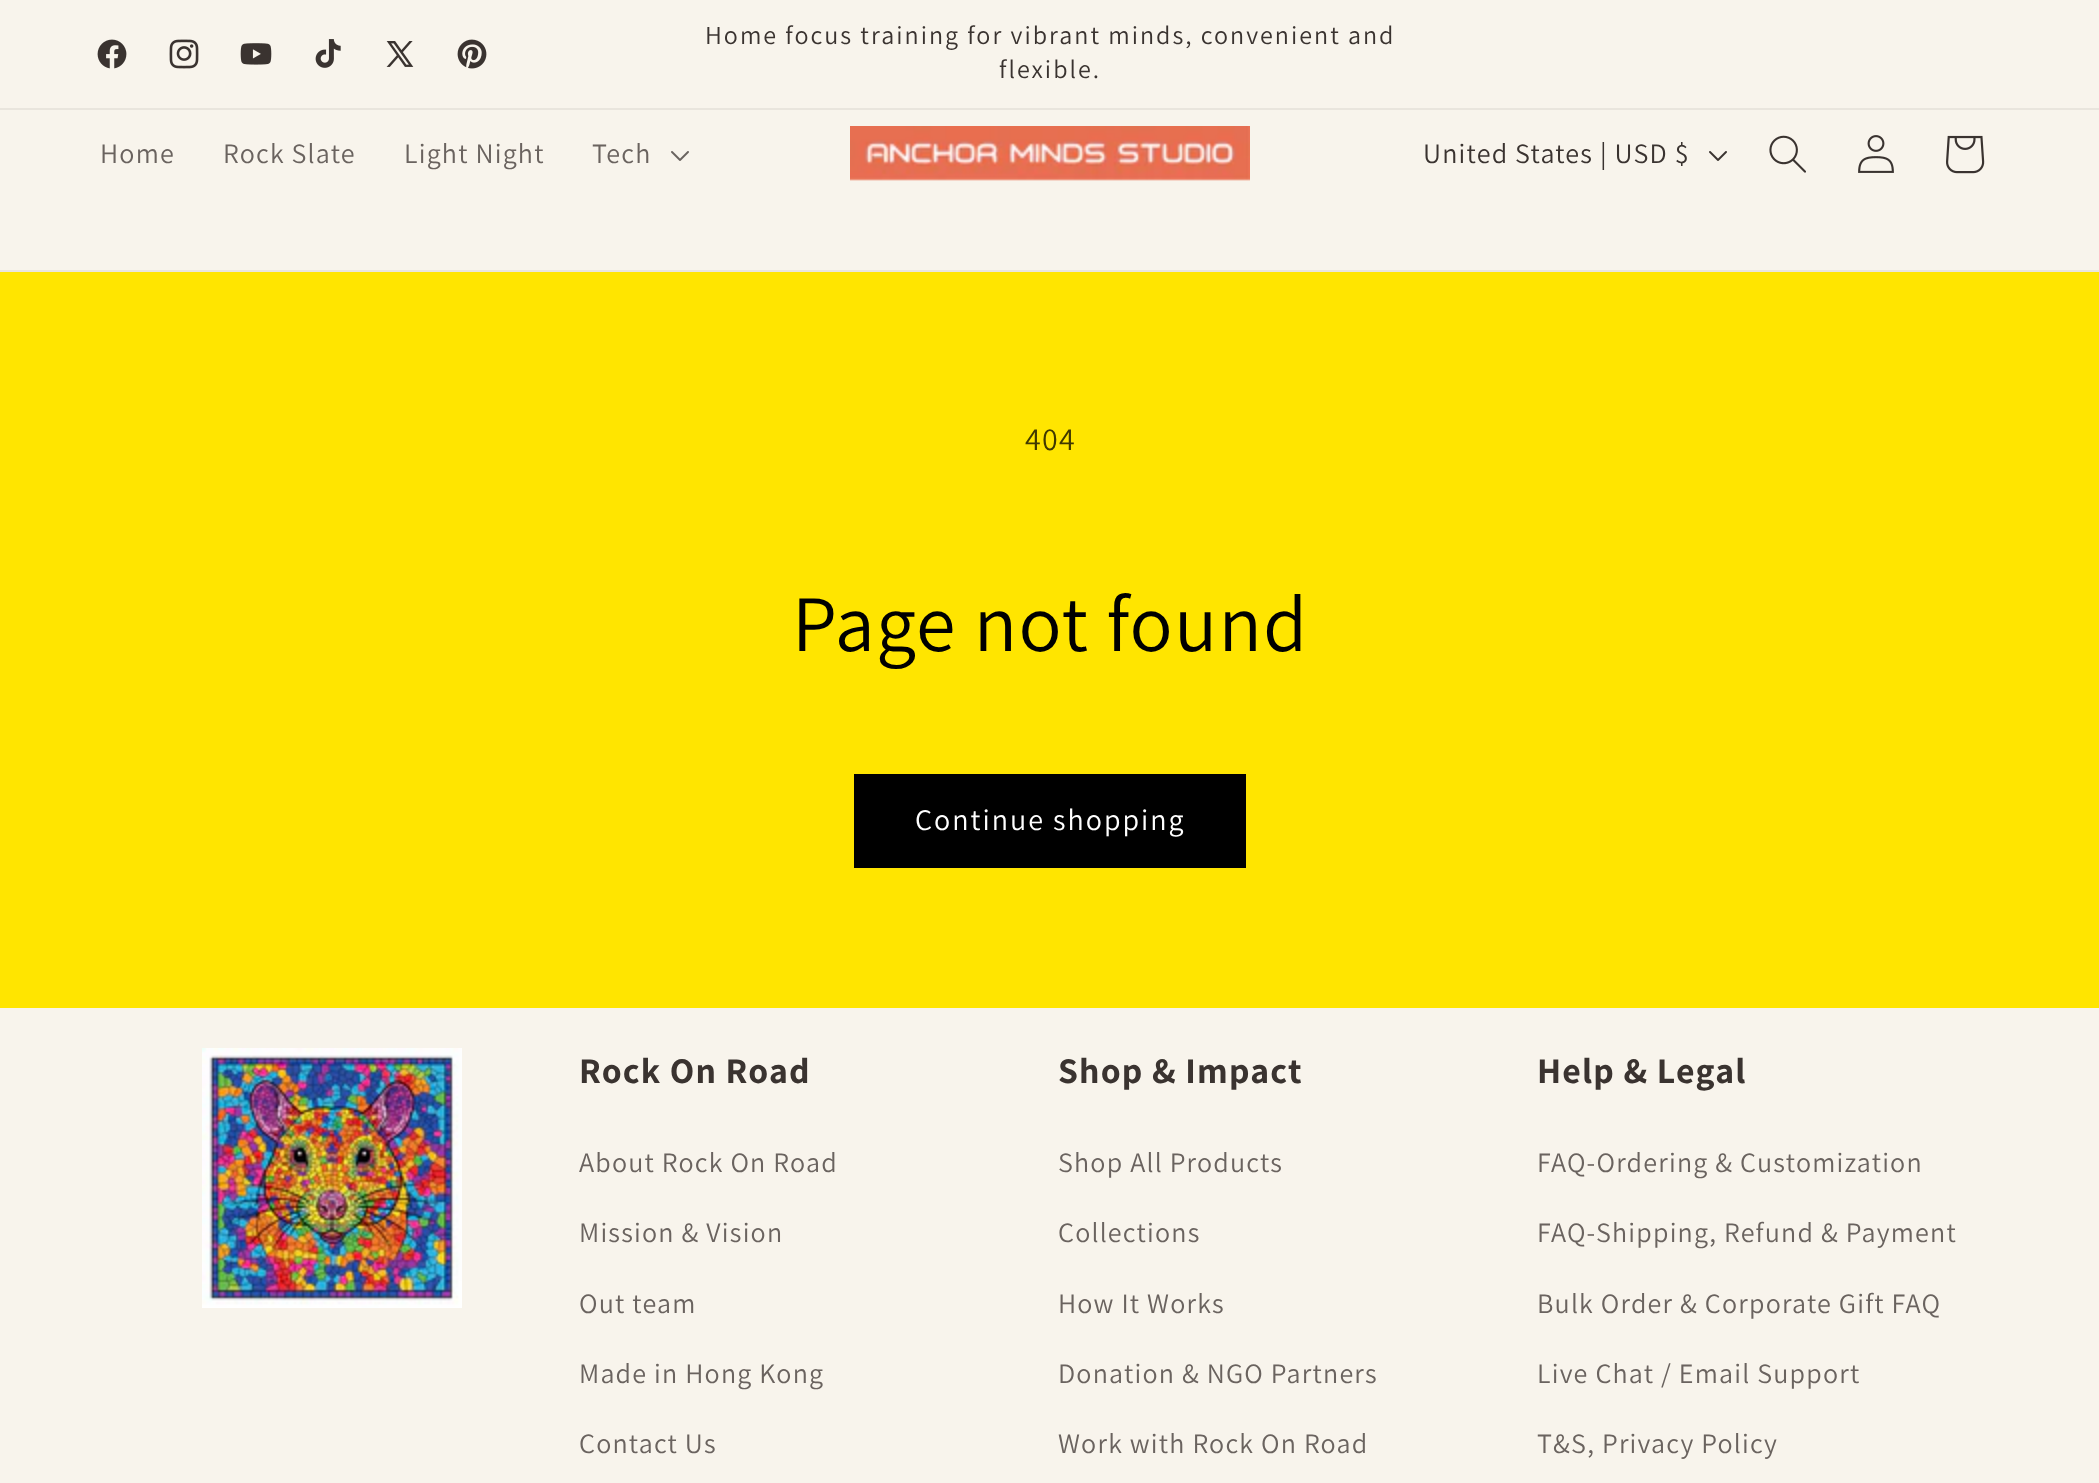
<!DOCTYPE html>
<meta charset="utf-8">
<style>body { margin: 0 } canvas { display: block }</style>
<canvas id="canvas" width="2099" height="1483"></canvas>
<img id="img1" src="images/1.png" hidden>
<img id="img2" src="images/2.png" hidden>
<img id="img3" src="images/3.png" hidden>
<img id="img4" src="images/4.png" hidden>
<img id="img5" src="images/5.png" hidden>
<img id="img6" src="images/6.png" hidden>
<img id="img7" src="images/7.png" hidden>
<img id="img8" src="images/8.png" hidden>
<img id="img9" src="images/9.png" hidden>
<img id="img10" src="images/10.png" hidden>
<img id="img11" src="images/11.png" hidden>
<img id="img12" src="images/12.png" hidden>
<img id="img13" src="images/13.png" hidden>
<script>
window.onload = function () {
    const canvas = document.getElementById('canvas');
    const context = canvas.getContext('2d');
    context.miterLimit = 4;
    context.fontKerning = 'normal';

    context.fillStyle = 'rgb(255, 229, 0)';
    context.fillRect(0, 0, 2099, 1483);
    context.fillStyle = 'rgb(248, 244, 236)';
    context.fillRect(0, 0, 2099, 108);
    context.fillStyle = 'rgb(233, 229, 221)';
    context.fillRect(0, 108, 2099, 2);
    context.drawImage(document.getElementById('img1'), 97, 39, 30, 30);
    context.drawImage(document.getElementById('img2'), 169, 39, 30, 30);
    context.drawImage(document.getElementById('img3'), 240, 43, 32, 22);
    context.drawImage(document.getElementById('img4'), 315, 39, 26, 29);
    context.drawImage(document.getElementById('img5'), 386, 41, 28, 26);
    context.drawImage(document.getElementById('img6'), 457, 39, 30, 30);
    context.fillStyle = 'rgb(248, 244, 236)';
    context.fillRect(0, 110, 2099, 160);
    context.fillStyle = 'rgb(233, 229, 221)';
    context.fillRect(0, 270, 2099, 2);
    context.drawImage(document.getElementById('img7'), 671, 151, 18, 10);
    context.drawImage(document.getElementById('img8'), 850, 126, 400, 55);
    context.drawImage(document.getElementById('img9'), 1709, 151, 18, 10);
    context.drawImage(document.getElementById('img10'), 1769, 135, 37, 38);
    context.drawImage(document.getElementById('img11'), 1858, 135, 36, 38);
    context.drawImage(document.getElementById('img12'), 1946, 135, 39, 39);
    context.fillStyle = 'rgb(0, 0, 0)';
    context.fillRect(854, 774, 392, 94);
    context.fillStyle = 'rgb(248, 244, 236)';
    context.fillRect(0, 1008, 2099, 475);
    context.drawImage(document.getElementById('img13'), 202, 1048, 260, 260);
    context.letterSpacing = '2px';
    context.font = '26px Assistant';
    context.fillStyle = 'rgb(58, 51, 48)';
    context.fillText('Home focus training for vibrant minds, convenient and', 705, 44);
    context.fillText('flexible.', 999, 78);
    context.letterSpacing = '1.2px';
    context.font = '28px Assistant';
    context.fillStyle = 'rgb(106, 99, 95)';
    context.fillText('Home', 100, 163);
    context.fillText('Rock Slate', 223, 163);
    context.fillText('Light Night', 404, 163);
    context.fillText('Tech', 592, 163);
    context.fillStyle = 'rgb(58, 51, 48)';
    context.fillText('United States | USD $', 1423, 163);
    context.font = '32px Assistant';
    context.fillStyle = 'rgb(64, 57, 0)';
    context.fillText('404', 1025, 450);
    context.font = '80px Assistant';
    context.fillStyle = 'rgb(0, 0, 0)';
    context.fillText('Page not found', 792, 651);
    context.letterSpacing = '2px';
    context.font = '30px Assistant';
    context.fillStyle = 'rgb(255, 255, 255)';
    context.fillText('Continue shopping', 915, 830);
    context.letterSpacing = '1.2px';
    context.font = 'bold 36px Assistant';
    context.fillStyle = 'rgb(58, 51, 48)';
    context.fillText('Rock On Road', 579, 1083);
    context.font = '28px Assistant';
    context.fillStyle = 'rgb(106, 99, 95)';
    context.fillText('About Rock On Road', 579, 1172);
    context.fillText('Mission & Vision', 579, 1242);
    context.fillText('Out team', 579, 1313);
    context.fillText('Made in Hong Kong', 579, 1383);
    context.fillText('Contact Us', 579, 1453);
    context.font = 'bold 36px Assistant';
    context.fillStyle = 'rgb(58, 51, 48)';
    context.fillText('Shop & Impact', 1058, 1083);
    context.font = '28px Assistant';
    context.fillStyle = 'rgb(106, 99, 95)';
    context.fillText('Shop All Products', 1058, 1172);
    context.fillText('Collections', 1058, 1242);
    context.fillText('How It Works', 1058, 1313);
    context.fillText('Donation & NGO Partners', 1058, 1383);
    context.fillText('Work with Rock On Road', 1058, 1453);
    context.font = 'bold 36px Assistant';
    context.fillStyle = 'rgb(58, 51, 48)';
    context.fillText('Help & Legal', 1537, 1083);
    context.font = '28px Assistant';
    context.fillStyle = 'rgb(106, 99, 95)';
    context.fillText('FAQ-Ordering & Customization', 1537, 1172);
    context.fillText('FAQ-Shipping, Refund & Payment', 1537, 1242);
    context.fillText('Bulk Order & Corporate Gift FAQ', 1537, 1313);
    context.fillText('Live Chat / Email Support', 1537, 1383);
    context.fillText('T&S, Privacy Policy', 1537, 1453);
};
</script>
